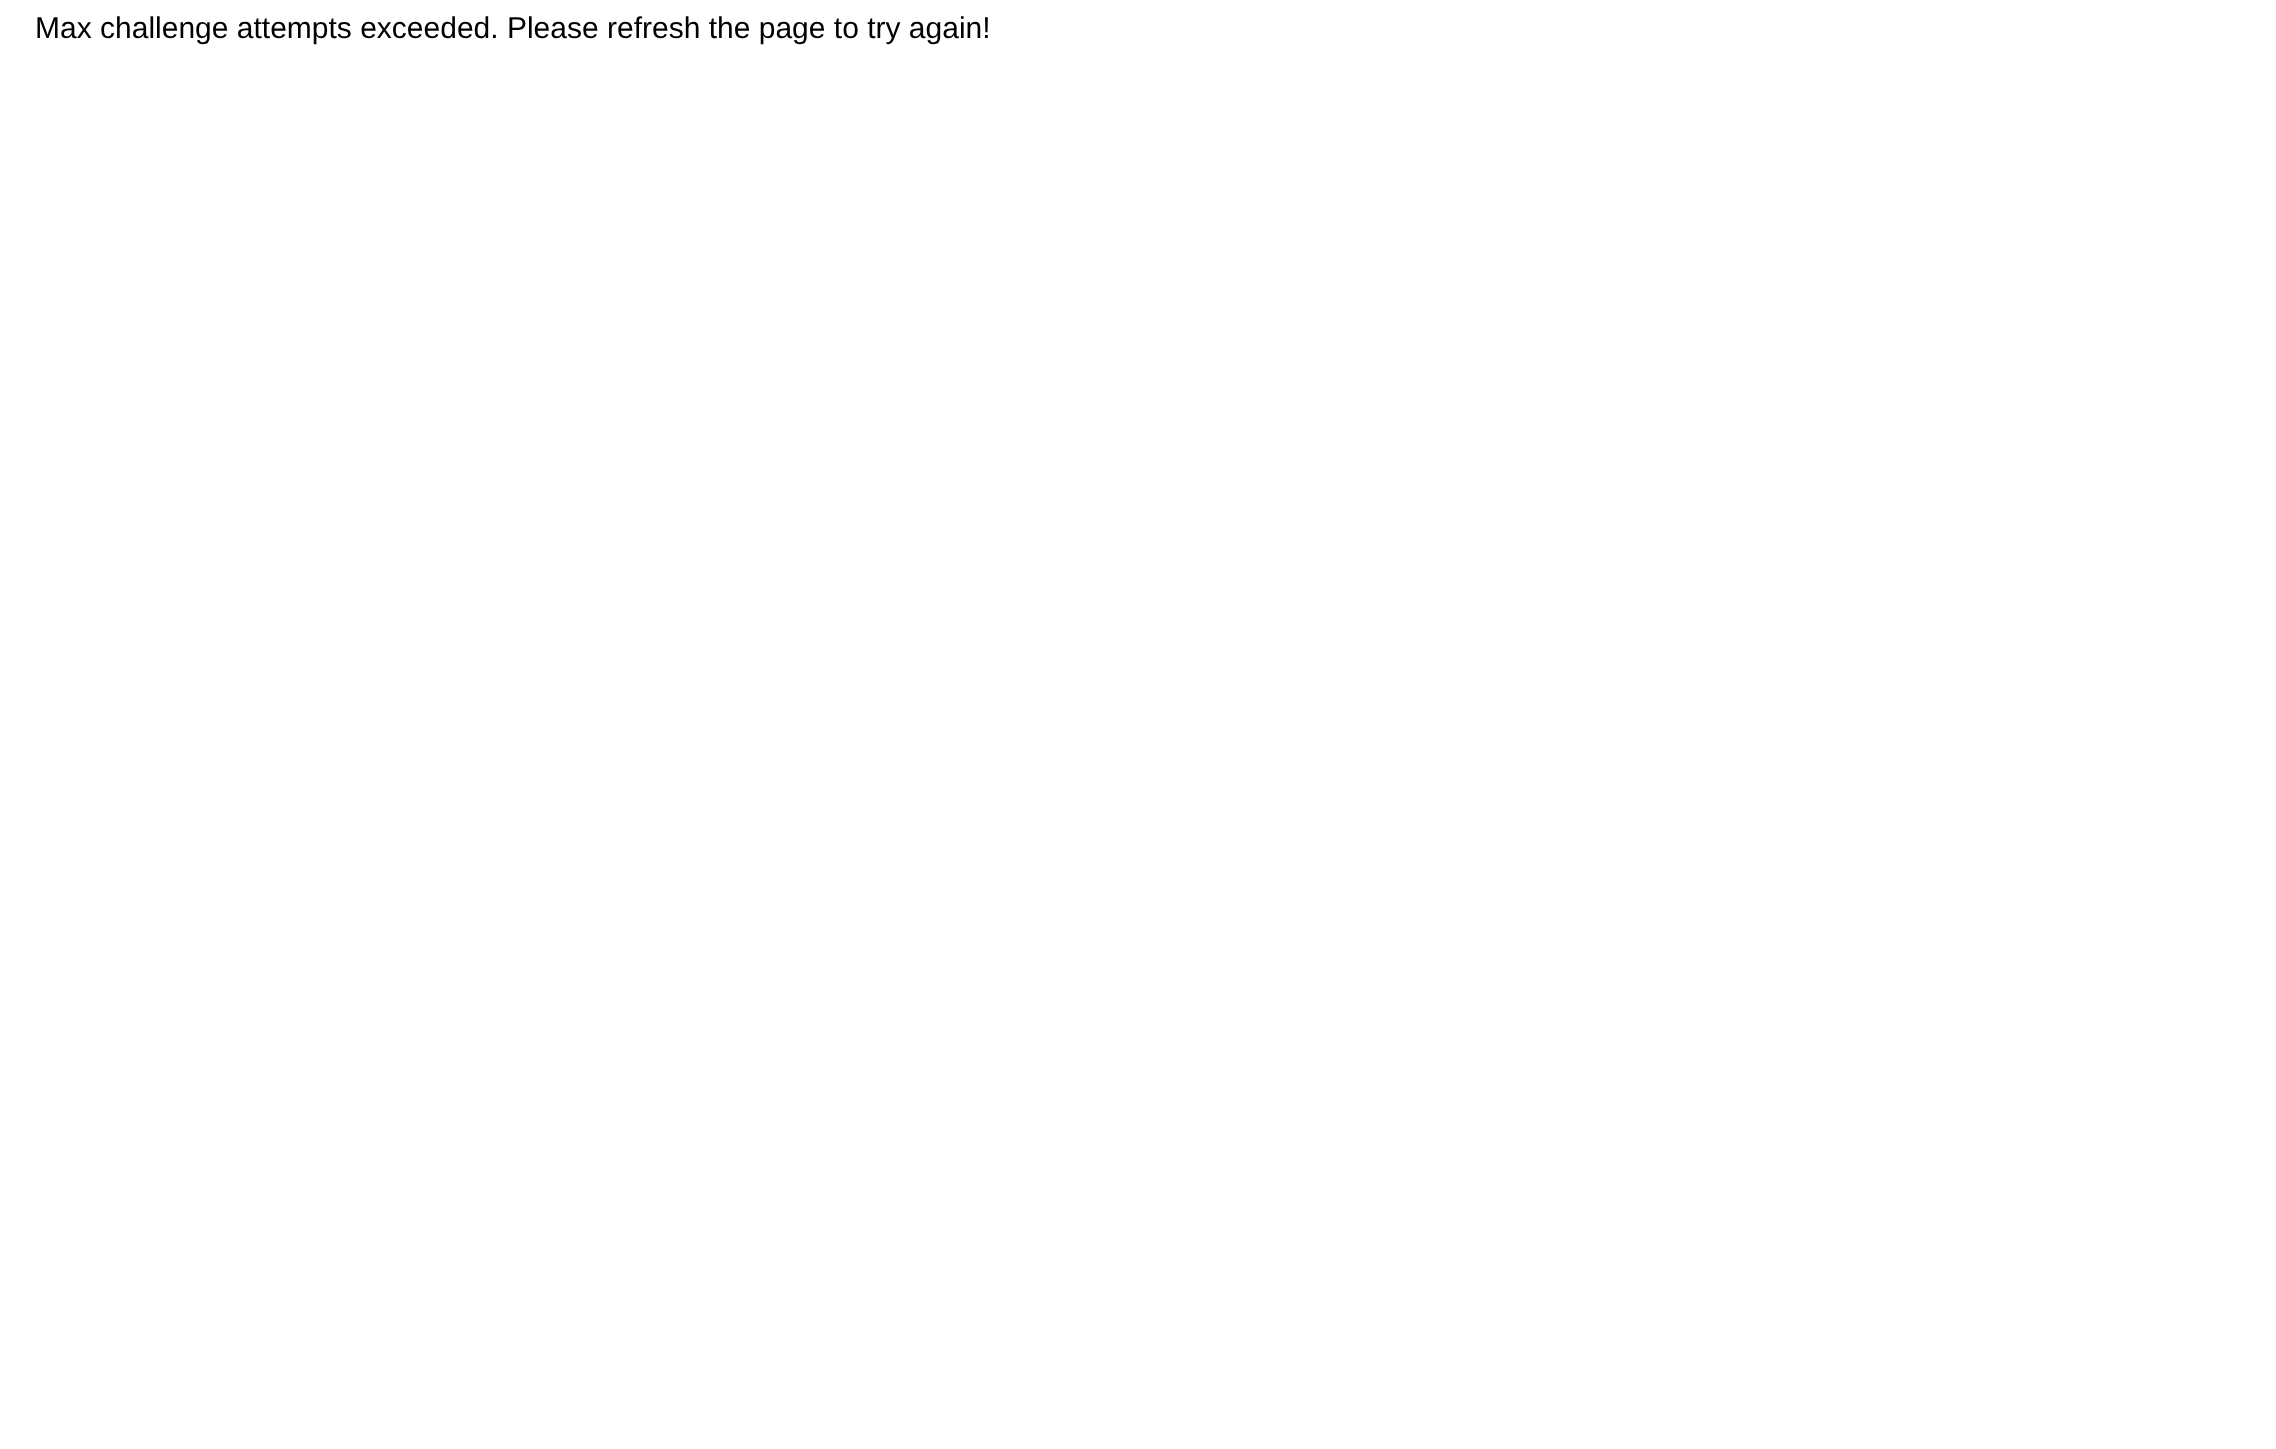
<!DOCTYPE html>
<meta charset="utf-8">
<style>body { margin: 0 } canvas { display: block }</style>
<canvas id="canvas" width="2276" height="1449"></canvas>
<script>
window.onload = function () {
    const canvas = document.getElementById('canvas');
    const context = canvas.getContext('2d');
    context.miterLimit = 4;
    context.fontKerning = 'normal';

    context.fillStyle = 'rgb(255, 255, 255)';
    context.fillRect(0, 0, 2276, 1449);
    context.font = '30px Liberation Sans';
    context.fillStyle = 'rgb(0, 0, 0)';
    context.fillText('Max challenge attempts exceeded. Please refresh the page to try again!', 35, 38);
};
</script>
